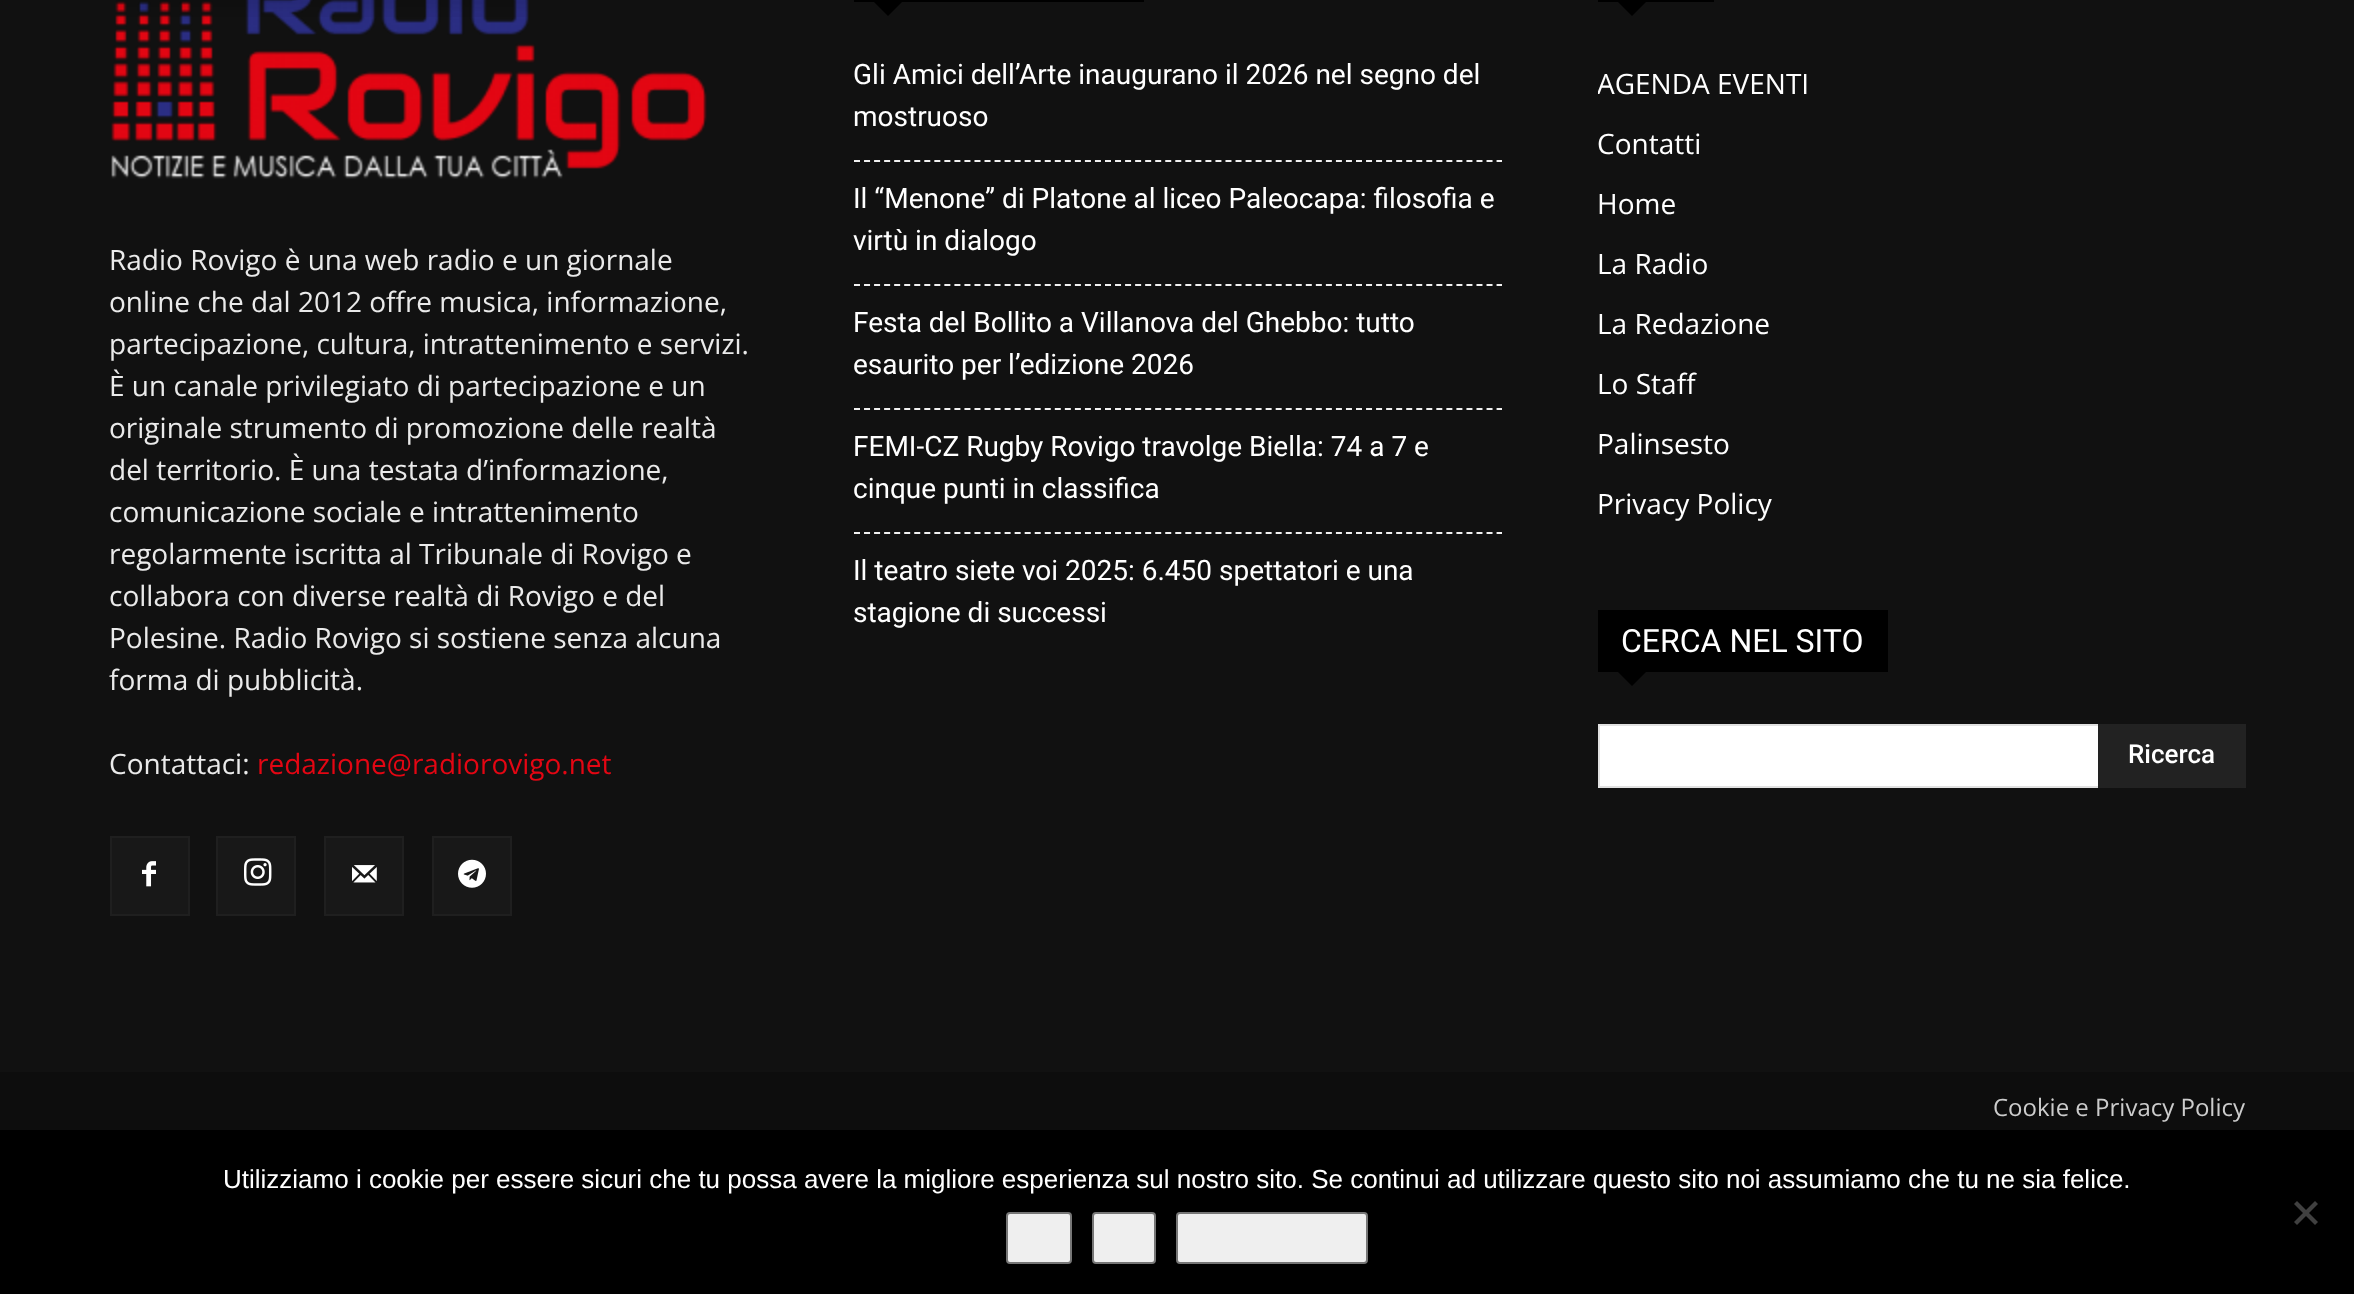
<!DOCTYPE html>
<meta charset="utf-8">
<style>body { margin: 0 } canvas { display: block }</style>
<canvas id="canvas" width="2354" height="1294"></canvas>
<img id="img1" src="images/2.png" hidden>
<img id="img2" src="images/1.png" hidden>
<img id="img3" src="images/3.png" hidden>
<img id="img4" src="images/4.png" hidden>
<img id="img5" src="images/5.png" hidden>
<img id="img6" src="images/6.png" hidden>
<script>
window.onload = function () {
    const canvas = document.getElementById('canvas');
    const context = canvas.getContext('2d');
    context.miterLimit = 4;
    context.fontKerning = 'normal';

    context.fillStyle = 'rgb(13, 13, 13)';
    context.fillRect(0, 0, 2354, 1294);
    context.fillStyle = 'rgb(17, 17, 17)';
    context.fillRect(0, 0, 2354, 1072);
    context.drawImage(document.getElementById('img1'), 111, 0, 596, 179);
    context.drawImage(document.getElementById('img2'), 116, 0, 412, 17);
    context.fillStyle = 'rgb(24, 24, 24)';
    context.fillRect(112, 838, 76, 76);
    context.drawImage(document.getElementById('img3'), 142, 861, 14, 26);
    context.strokeStyle = 'rgb(31, 31, 31)';
    context.lineWidth = 2;
    context.strokeRect(111, 837, 78, 78);
    context.fillRect(218, 838, 76, 76);
    context.drawImage(document.getElementById('img4'), 244, 858, 28, 28);
    context.strokeRect(217, 837, 78, 78);
    context.fillRect(326, 838, 76, 76);
    context.drawImage(document.getElementById('img5'), 352, 865, 25, 18);
    context.strokeRect(325, 837, 78, 78);
    context.fillRect(434, 838, 76, 76);
    context.drawImage(document.getElementById('img6'), 458, 859, 28, 29);
    context.strokeRect(433, 837, 78, 78);
    context.fillStyle = 'rgb(0, 0, 0)';
    context.fillRect(854, 0, 290, 2);
    context.beginPath();
    context.moveTo(874, 2);
    context.lineTo(902, 2);
    context.lineTo(888, 16);
    context.closePath();
    context.fill();
    context.beginPath();
    context.moveTo(854, 161);
    context.lineTo(1502, 161);
    context.strokeStyle = 'rgb(241, 241, 241)';
    context.setLineDash([6, 4.04]);
    context.stroke();
    context.beginPath();
    context.moveTo(854, 285);
    context.lineTo(1502, 285);
    context.stroke();
    context.beginPath();
    context.moveTo(854, 409);
    context.lineTo(1502, 409);
    context.stroke();
    context.beginPath();
    context.moveTo(854, 533);
    context.lineTo(1502, 533);
    context.stroke();
    context.fillRect(1598, 0, 116, 2);
    context.beginPath();
    context.moveTo(1618, 2);
    context.lineTo(1646, 2);
    context.lineTo(1632, 16);
    context.closePath();
    context.fill();
    context.fillRect(1598, 610, 290, 62);
    context.beginPath();
    context.moveTo(1618, 672);
    context.lineTo(1646, 672);
    context.lineTo(1632, 686);
    context.closePath();
    context.fill();
    context.fillStyle = 'rgb(255, 255, 255)';
    context.fillRect(1600, 726, 498, 60);
    context.fillStyle = 'rgb(225, 225, 225)';
    context.fillRect(1598, 724, 500, 2);
    context.fillRect(1598, 786, 500, 2);
    context.fillRect(1598, 724, 2, 64);
    context.fillStyle = 'rgb(34, 34, 34)';
    context.fillRect(2098, 724, 148, 64);
    context.fillStyle = 'rgb(0, 0, 0)';
    context.fillRect(0, 1130, 2354, 164);
    context.fillStyle = 'rgb(239, 239, 239)';
    context.beginPath();
    context.roundRect(1007, 1213, 64, 50, 3);
    context.fill();
    context.strokeStyle = 'rgb(118, 118, 118)';
    context.setLineDash([]);
    context.stroke();
    context.beginPath();
    context.roundRect(1093, 1213, 62, 50, 3);
    context.fill();
    context.stroke();
    context.beginPath();
    context.roundRect(1177, 1213, 190, 50, 3);
    context.fill();
    context.stroke();
    context.fillStyle = 'rgb(64, 64, 64)';
    context.beginPath();
    context.moveTo(2315, 1201);
    context.lineTo(2318, 1204);
    context.lineTo(2297, 1225);
    context.lineTo(2294, 1222);
    context.closePath();
    context.fill();
    context.beginPath();
    context.moveTo(2294, 1204);
    context.lineTo(2297, 1201);
    context.lineTo(2318, 1222);
    context.lineTo(2315, 1225);
    context.closePath();
    context.fill();
    context.font = '28px Open Sans';
    context.fillStyle = 'rgb(234, 234, 234)';
    context.fillText('Radio Rovigo è una web radio e un giornale', 109, 270);
    context.fillText('online che dal 2012 offre musica, informazione,', 109, 312);
    context.fillText('partecipazione, cultura, intrattenimento e servizi.', 109, 354);
    context.fillText('È un canale privilegiato di partecipazione e un', 109, 396);
    context.fillText('originale strumento di promozione delle realtà', 109, 438);
    context.fillText('del territorio. È una testata d’informazione,', 109, 480);
    context.fillText('comunicazione sociale e intrattenimento', 109, 522);
    context.fillText('regolarmente iscritta al Tribunale di Rovigo e', 109, 564);
    context.fillText('collabora con diverse realtà di Rovigo e del', 109, 606);
    context.fillText('Polesine. Radio Rovigo si sostiene senza alcuna', 109, 648);
    context.fillText('forma di pubblicità.', 109, 690);
    context.fillText('Contattaci:', 109, 774);
    context.fillStyle = 'rgb(227, 6, 19)';
    context.fillText('redazione@radiorovigo.net', 257, 774);
    context.font = '28px Roboto';
    context.fillStyle = 'rgb(255, 255, 255)';
    context.fillText('Gli Amici dell’Arte inaugurano il 2026 nel segno del', 853, 84);
    context.fillText('mostruoso', 853, 126);
    context.fillText('Il “Menone” di Platone al liceo Paleocapa: filosofia e', 853, 208);
    context.fillText('virtù in dialogo', 853, 250);
    context.fillText('Festa del Bollito a Villanova del Ghebbo: tutto', 853, 332);
    context.fillText('esaurito per l’edizione 2026', 853, 374);
    context.fillText('FEMI-CZ Rugby Rovigo travolge Biella: 74 a 7 e', 853, 456);
    context.fillText('cinque punti in classifica', 853, 498);
    context.fillText('Il teatro siete voi 2025: 6.450 spettatori e una', 853, 580);
    context.fillText('stagione di successi', 853, 622);
    context.save();
    context.beginPath();
    context.rect(1598, 0, 648, 534);
    context.clip();
    context.font = '28px Open Sans';
    context.fillText('AGENDA EVENTI', 1597, 94);
    context.restore();
    context.font = '28px Open Sans';
    context.fillText('Contatti', 1597, 154);
    context.fillText('Home', 1597, 214);
    context.fillText('La Radio', 1597, 274);
    context.fillText('La Redazione', 1597, 334);
    context.fillText('Lo Staff', 1597, 394);
    context.fillText('Palinsesto', 1597, 454);
    context.fillText('Privacy Policy', 1597, 514);
    context.font = '32px Roboto';
    context.fillText('CERCA NEL SITO', 1621, 652);
    context.font = '500 26px Roboto';
    context.fillText('Ricerca', 2128, 763);
    context.font = '24px Open Sans';
    context.fillStyle = 'rgb(204, 204, 204)';
    context.fillText('Cookie e Privacy Policy', 1993, 1116);
    context.font = '26px Liberation Sans';
    context.fillStyle = 'rgb(255, 255, 255)';
    context.fillText('Utilizziamo i cookie per essere sicuri che tu possa avere la migliore esperienza sul nostro sito. Se continui ad utilizzare questo sito noi assumiamo che tu ne sia felice.', 223, 1188);
};
</script>
